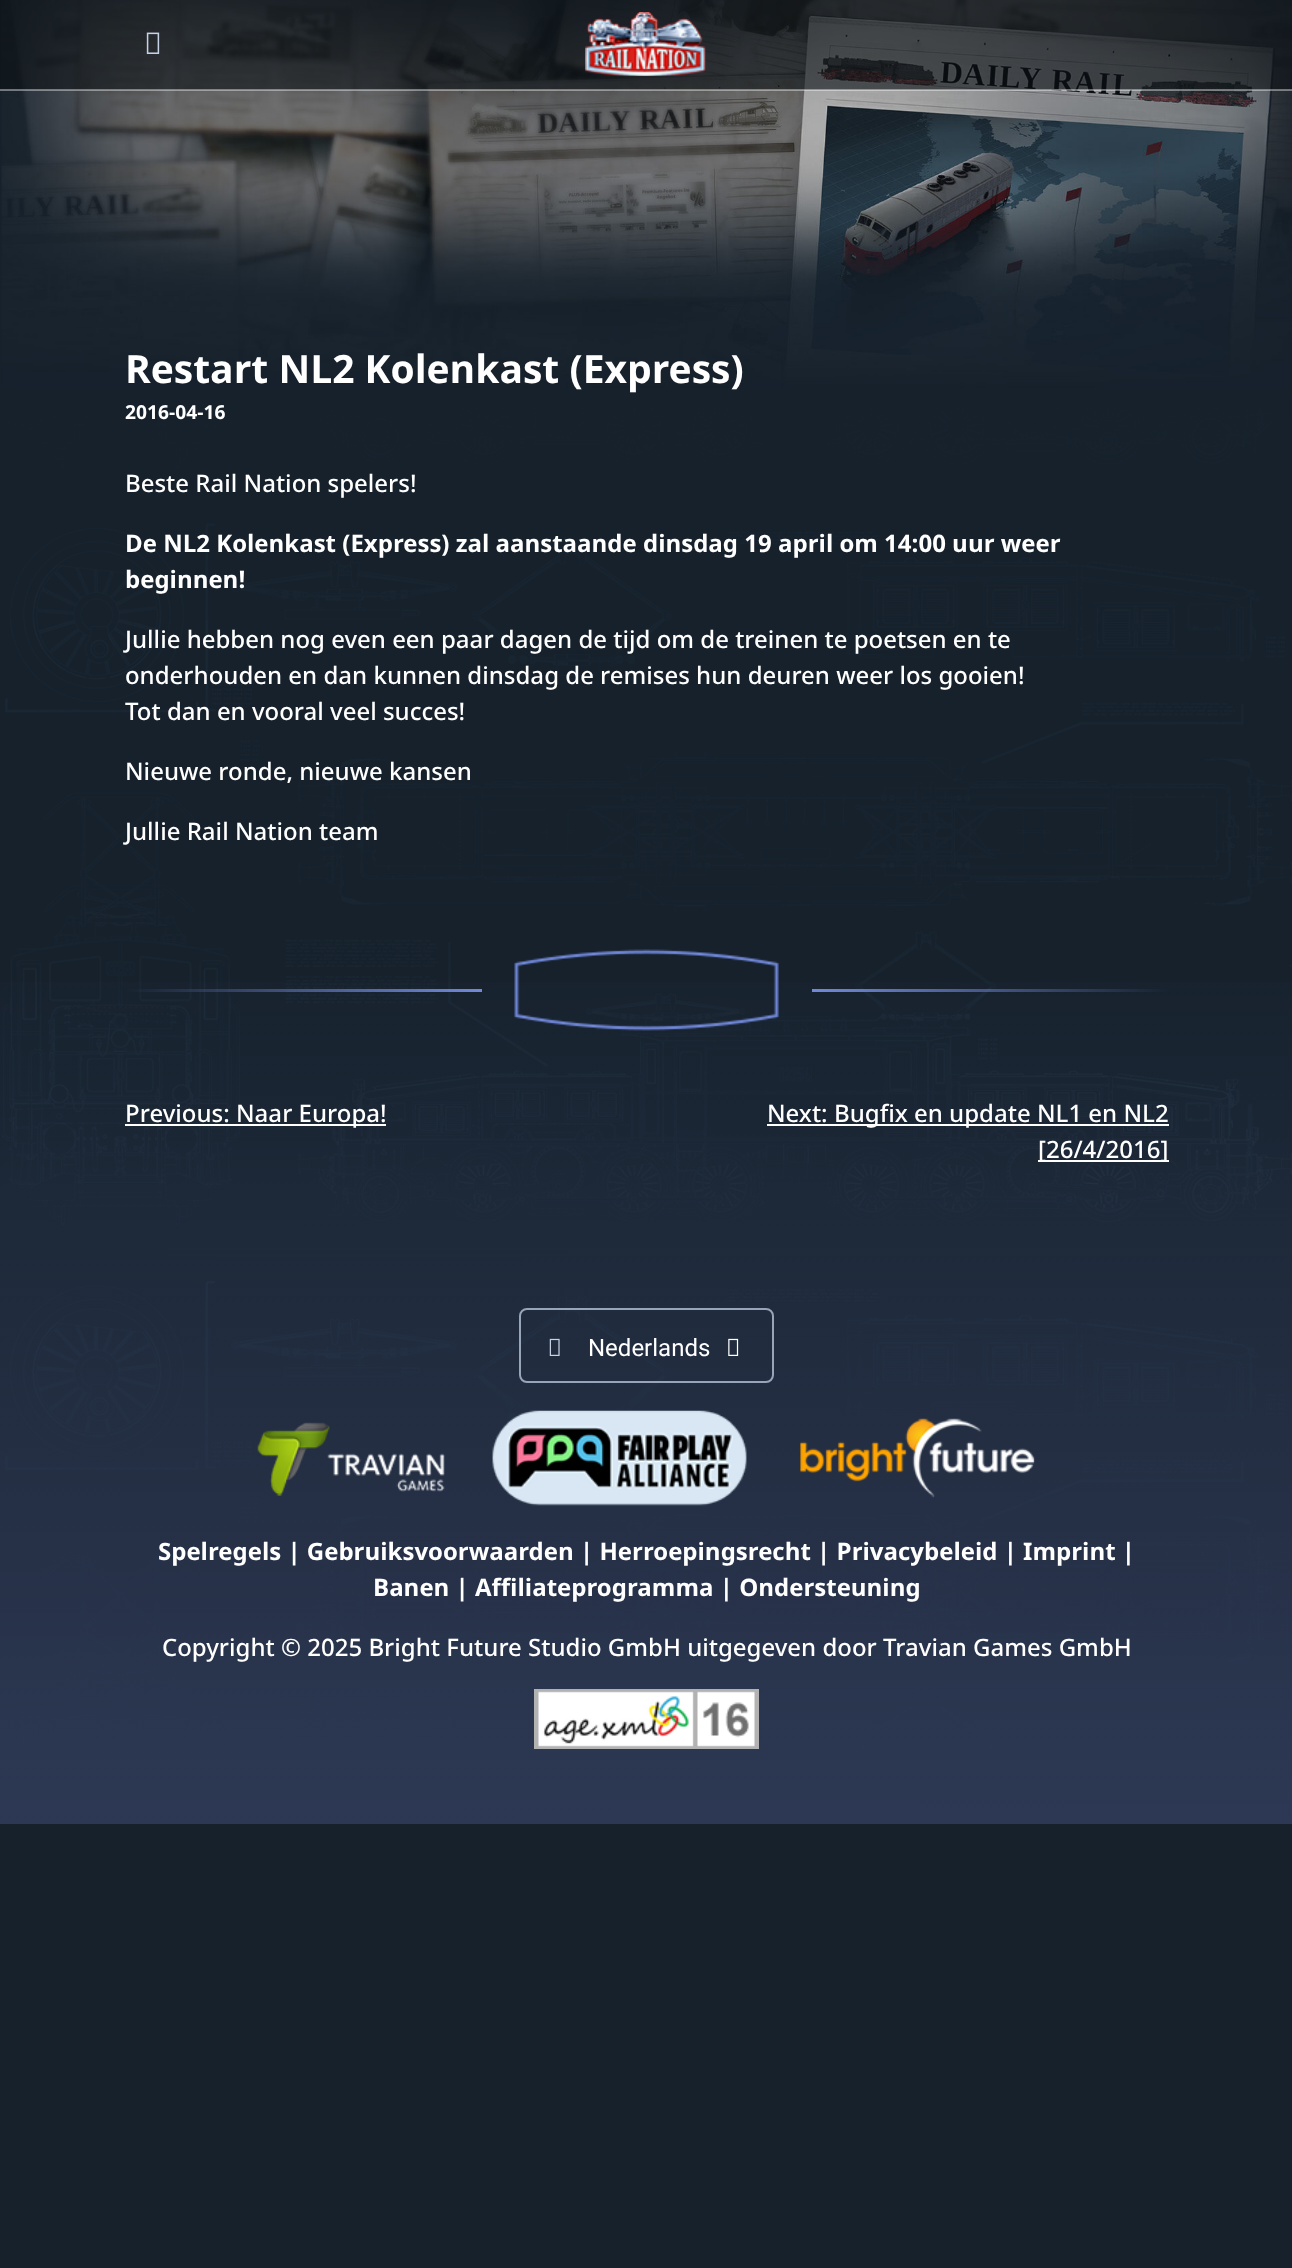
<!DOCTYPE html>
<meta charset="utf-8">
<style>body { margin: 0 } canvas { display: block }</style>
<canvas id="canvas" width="1292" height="2268"></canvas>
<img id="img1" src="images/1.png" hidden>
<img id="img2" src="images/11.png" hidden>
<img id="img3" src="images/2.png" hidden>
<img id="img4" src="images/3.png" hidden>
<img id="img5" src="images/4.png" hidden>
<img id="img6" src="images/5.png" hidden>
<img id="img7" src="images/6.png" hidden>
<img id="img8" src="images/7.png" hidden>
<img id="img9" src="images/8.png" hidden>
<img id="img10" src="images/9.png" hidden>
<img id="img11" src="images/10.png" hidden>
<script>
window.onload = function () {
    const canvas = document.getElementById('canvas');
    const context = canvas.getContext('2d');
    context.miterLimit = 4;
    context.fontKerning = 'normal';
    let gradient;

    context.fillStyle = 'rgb(22, 33, 44)';
    context.fillRect(0, 0, 1292, 2268);
    context.drawImage(document.getElementById('img1'), 1, 0, 1291, 390);
    context.drawImage(document.getElementById('img2'), 2, 392, 1290, 1357);
    gradient = context.createLinearGradient(647, 390, 647, 690);
    gradient.addColorStop(0, 'rgb(22, 33, 44)');
    gradient.addColorStop(1, 'rgba(22, 33, 44, 0)');
    context.fillStyle = gradient;
    context.fillRect(9, 392, 1283, 228);
    context.fillStyle = 'rgba(12, 17, 20, 0.6)';
    context.fillRect(0, 0, 1292, 90);
    context.fillStyle = 'rgba(255, 255, 255, 0.4)';
    context.fillRect(0, 89, 1292, 2);
    context.drawImage(document.getElementById('img3'), 146, 32, 14, 22);
    context.drawImage(document.getElementById('img4'), 585, 12, 121, 64);
    gradient = context.createLinearGradient(646, 924, 647, 1824);
    gradient.addColorStop(0, 'rgba(45, 56, 84, 0)');
    gradient.addColorStop(1, 'rgb(45, 56, 84)');
    context.fillStyle = gradient;
    context.fillRect(0, 982, 1292, 842);
    context.drawImage(document.getElementById('img5'), 514, 949, 265, 82);
    gradient = context.createLinearGradient(125, 990, 482, 990);
    gradient.addColorStop(0, 'rgba(114, 137, 218, 0)');
    gradient.addColorStop(1, 'rgb(114, 137, 218)');
    context.fillStyle = gradient;
    context.fillRect(125, 989, 357, 3);
    gradient = context.createLinearGradient(812, 990, 1169, 990);
    gradient.addColorStop(0, 'rgb(114, 137, 218)');
    gradient.addColorStop(1, 'rgba(114, 137, 218, 0)');
    context.fillStyle = gradient;
    context.fillRect(812, 989, 357, 3);
    context.fillStyle = 'rgb(255, 255, 255)';
    context.fillRect(125, 1124, 261, 2);
    context.fillRect(767, 1124, 402, 2);
    context.fillRect(1038, 1160, 131, 2);
    context.beginPath();
    context.roundRect(520, 1309, 253, 73, 7);
    context.strokeStyle = 'rgba(198, 211, 230, 0.72)';
    context.lineWidth = 2;
    context.stroke();
    context.drawImage(document.getElementById('img6'), 549, 1338, 11, 18);
    context.drawImage(document.getElementById('img7'), 728, 1338, 11, 18);
    context.drawImage(document.getElementById('img8'), 257, 1422, 188, 74);
    context.drawImage(document.getElementById('img9'), 492, 1410, 255, 96);
    context.drawImage(document.getElementById('img10'), 800, 1418, 235, 80);
    context.drawImage(document.getElementById('img11'), 534, 1689, 225, 60);
    context.font = 'bold 39px Noto Sans';
    context.fillText('Restart NL2 Kolenkast (Express)', 125, 383);
    context.font = 'bold 19.25px Noto Sans';
    context.fillText('2016-04-16', 125, 419);
    context.font = '500 24px Noto Sans';
    context.fillText('Beste Rail Nation spelers!', 125, 492);
    context.font = 'bold 24px Noto Sans';
    context.fillText('De NL2 Kolenkast (Express) zal aanstaande dinsdag 19 april om 14:00 uur weer', 125, 552);
    context.fillText('beginnen!', 125, 588);
    context.font = '500 24px Noto Sans';
    context.fillText('Jullie hebben nog even een paar dagen de tijd om de treinen te poetsen en te', 125, 648);
    context.fillText('onderhouden en dan kunnen dinsdag de remises hun deuren weer los gooien!', 125, 684);
    context.fillText('Tot dan en vooral veel succes!', 125, 720);
    context.fillText('Nieuwe ronde, nieuwe kansen', 125, 780);
    context.fillText('Jullie Rail Nation team', 125, 840);
    context.fillText('Previous: Naar Europa!', 125, 1122);
    context.fillText('Next: Bugfix en update NL1 en NL2', 767, 1122);
    context.fillText('[26/4/2016]', 1038, 1158);
    context.font = '24px Roboto';
    context.fillText('Nederlands', 588, 1356);
    context.font = 'bold 24px Noto Sans';
    context.fillText('Spelregels | Gebruiksvoorwaarden | Herroepingsrecht | Privacybeleid | Imprint |', 158, 1560);
    context.fillText('Banen | Affiliateprogramma | Ondersteuning', 373, 1596);
    context.font = '500 24px Noto Sans';
    context.fillText('Copyright © 2025 Bright Future Studio GmbH uitgegeven door Travian Games GmbH', 162, 1656);
};
</script>
